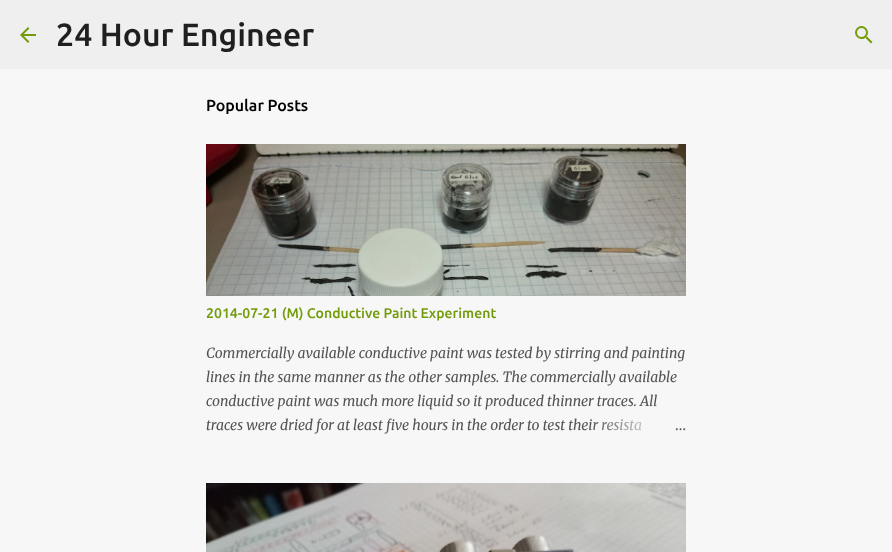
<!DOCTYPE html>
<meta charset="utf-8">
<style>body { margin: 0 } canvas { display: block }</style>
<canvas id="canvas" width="892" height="552"></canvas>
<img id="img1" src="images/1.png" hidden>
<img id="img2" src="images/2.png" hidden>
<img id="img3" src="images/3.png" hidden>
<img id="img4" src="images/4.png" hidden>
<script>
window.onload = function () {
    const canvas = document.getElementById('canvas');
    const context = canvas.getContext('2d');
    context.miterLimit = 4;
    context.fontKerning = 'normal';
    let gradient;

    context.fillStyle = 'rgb(247, 247, 247)';
    context.fillRect(0, 0, 892, 552);
    context.fillStyle = 'rgb(239, 239, 239)';
    context.fillRect(0, 0, 892, 69);
    context.drawImage(document.getElementById('img1'), 20, 27, 16, 16);
    context.drawImage(document.getElementById('img2'), 855, 26, 18, 18);
    context.drawImage(document.getElementById('img3'), 206, 144, 480, 152);
    context.drawImage(document.getElementById('img4'), 206, 483, 480, 69);
    context.font = '500 32px Ubuntu';
    context.fillStyle = 'rgb(31, 31, 31)';
    context.fillText('24 Hour Engineer', 56, 46);
    context.font = '500 16px Ubuntu';
    context.fillStyle = 'rgb(0, 0, 0)';
    context.fillText('Popular Posts', 206, 111);
    context.font = '500 14px Ubuntu';
    context.fillStyle = 'rgb(114, 156, 11)';
    context.fillText('2014-07-21 (M) Conductive Paint Experiment', 206, 318);
    context.font = 'italic 14px Merriweather';
    context.fillStyle = 'rgb(83, 83, 83)';
    context.fillText('Commercially available conductive paint was tested by stirring and painting', 206, 358);
    context.fillText('lines in the same manner as the other samples. The commercially available', 206, 382);
    context.fillText('conductive paint was much more liquid so it produced thinner traces. All', 206, 406);
    context.fillText('traces were dried for at least five hours in the order to test their resista', 206, 430);
    gradient = context.createLinearGradient(686, 425, 590, 425);
    gradient.addColorStop(0, 'rgb(247, 247, 247)');
    gradient.addColorStop(0.2, 'rgb(247, 247, 247)');
    gradient.addColorStop(1, 'rgba(247, 247, 247, 0)');
    context.fillStyle = gradient;
    context.fillRect(593, 419, 49, 12);
    context.font = '300 14px Merriweather';
    context.fillStyle = 'rgb(83, 83, 83)';
    context.fillText('…', 675, 430);
};
</script>
